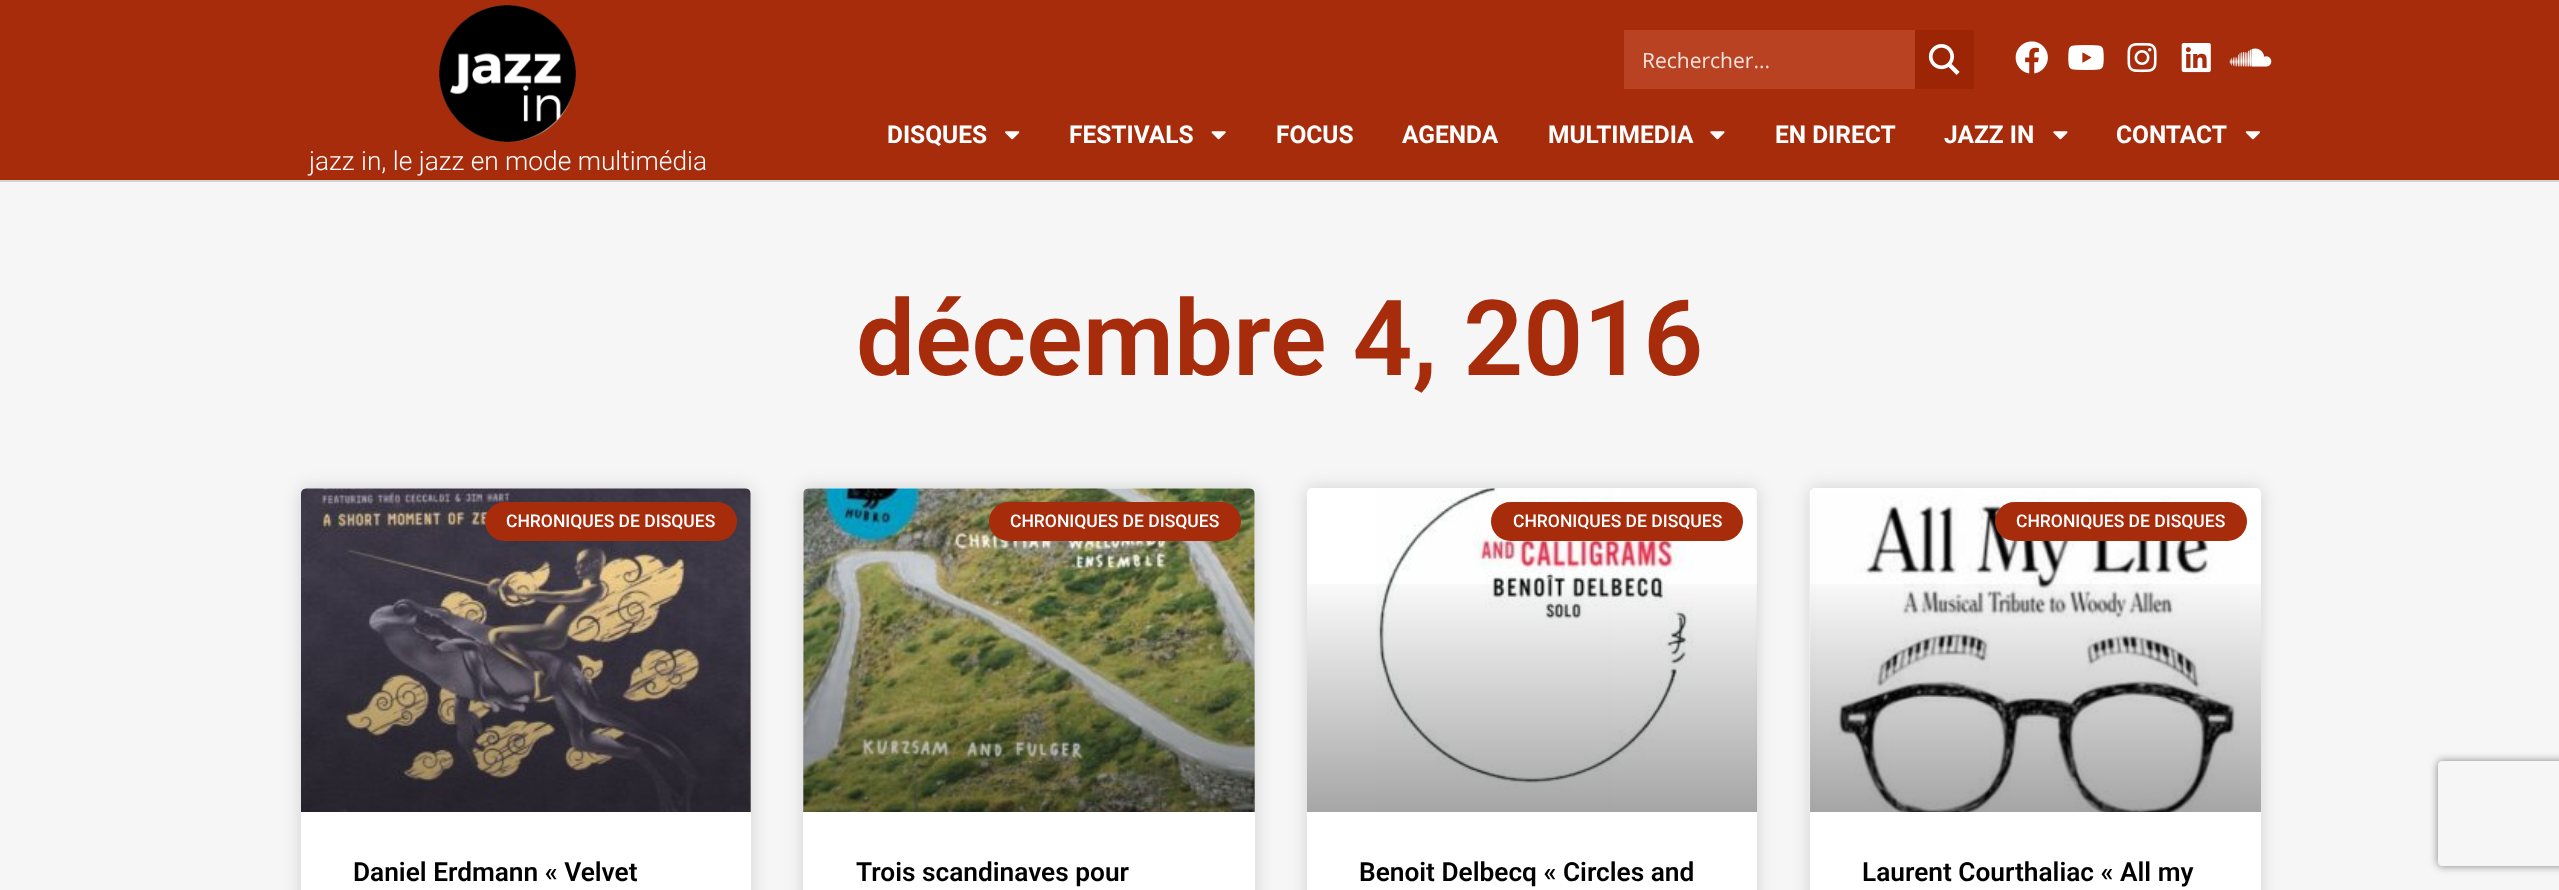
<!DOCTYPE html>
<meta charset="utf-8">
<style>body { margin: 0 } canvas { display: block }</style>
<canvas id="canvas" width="2559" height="890"></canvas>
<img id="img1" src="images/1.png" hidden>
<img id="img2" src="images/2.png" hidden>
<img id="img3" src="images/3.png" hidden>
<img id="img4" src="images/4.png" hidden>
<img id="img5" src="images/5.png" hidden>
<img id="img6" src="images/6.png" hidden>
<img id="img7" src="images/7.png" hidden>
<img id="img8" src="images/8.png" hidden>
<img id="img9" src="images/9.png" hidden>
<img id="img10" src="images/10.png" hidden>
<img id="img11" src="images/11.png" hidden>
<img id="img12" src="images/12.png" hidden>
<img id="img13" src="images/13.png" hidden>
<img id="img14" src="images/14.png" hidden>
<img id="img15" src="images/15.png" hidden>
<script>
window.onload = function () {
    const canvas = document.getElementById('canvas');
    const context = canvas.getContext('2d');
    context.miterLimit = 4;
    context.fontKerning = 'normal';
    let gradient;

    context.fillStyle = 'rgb(246, 246, 246)';
    context.fillRect(0, 0, 2559, 890);
    context.fillStyle = 'rgb(167, 44, 12)';
    context.fillRect(0, 0, 2559, 180);
    context.fillStyle = 'rgb(211, 211, 211)';
    context.fillRect(0, 180, 2559, 2);
    context.fillStyle = 'rgb(185, 66, 35)';
    context.fillRect(1624, 30, 291, 59);
    context.fillStyle = 'rgb(156, 37, 5)';
    context.fillRect(1915, 30, 59, 59);
    context.drawImage(document.getElementById('img1'), 1928, 44, 32, 31);
    context.drawImage(document.getElementById('img2'), 2015, 41, 33, 33);
    context.drawImage(document.getElementById('img3'), 2068, 45, 36, 25);
    context.drawImage(document.getElementById('img4'), 2127, 42, 30, 31);
    context.drawImage(document.getElementById('img5'), 2181, 43, 30, 30);
    context.drawImage(document.getElementById('img6'), 2229, 48, 43, 19);
    context.drawImage(document.getElementById('img7'), 1005, 131, 15, 9);
    context.drawImage(document.getElementById('img8'), 1211, 131, 15, 9);
    context.drawImage(document.getElementById('img9'), 1710, 131, 15, 9);
    context.drawImage(document.getElementById('img9'), 2053, 131, 15, 9);
    context.drawImage(document.getElementById('img10'), 2245, 131, 15, 9);
    context.drawImage(document.getElementById('img11'), 439, 5, 137, 137);
    context.fillStyle = 'rgba(0, 0, 0, 0.15)';
    context.filter = 'blur(9px)';
    context.beginPath();
    context.roundRect(301, 488, 450, 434, 5);
    context.fill();
    context.filter = 'none';
    context.fillStyle = 'rgb(255, 255, 255)';
    context.beginPath();
    context.roundRect(301, 488, 450, 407, 5);
    context.fill();
    context.drawImage(document.getElementById('img12'), 301, 488, 450, 324);
    gradient = context.createLinearGradient(526, 812, 526, 488);
    gradient.addColorStop(0, 'rgba(0, 0, 0, 0.35)');
    gradient.addColorStop(0.75, 'rgba(0, 0, 0, 0)');
    context.fillStyle = gradient;
    context.fillRect(301, 584, 450, 228);
    context.fillStyle = 'rgb(167, 44, 12)';
    context.beginPath();
    context.roundRect(485, 502, 252, 39, 19.5);
    context.fill();
    context.fillStyle = 'rgba(0, 0, 0, 0.15)';
    context.filter = 'blur(9px)';
    context.beginPath();
    context.roundRect(803, 488, 452, 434, 5);
    context.fill();
    context.filter = 'none';
    context.fillStyle = 'rgb(255, 255, 255)';
    context.beginPath();
    context.roundRect(803, 488, 452, 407, 5);
    context.fill();
    context.drawImage(document.getElementById('img13'), 803, 488, 452, 324);
    gradient = context.createLinearGradient(1029, 812, 1029, 488);
    gradient.addColorStop(0, 'rgba(0, 0, 0, 0.35)');
    gradient.addColorStop(0.75, 'rgba(0, 0, 0, 0)');
    context.fillStyle = gradient;
    context.fillRect(803, 584, 452, 228);
    context.fillStyle = 'rgb(167, 44, 12)';
    context.beginPath();
    context.roundRect(989, 502, 252, 39, 19.5);
    context.fill();
    context.fillStyle = 'rgba(0, 0, 0, 0.15)';
    context.filter = 'blur(9px)';
    context.beginPath();
    context.roundRect(1307, 488, 450, 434, 5);
    context.fill();
    context.filter = 'none';
    context.fillStyle = 'rgb(255, 255, 255)';
    context.beginPath();
    context.roundRect(1307, 488, 450, 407, 5);
    context.fill();
    context.drawImage(document.getElementById('img14'), 1376, 488, 381, 324);
    gradient = context.createLinearGradient(1532, 812, 1532, 488);
    gradient.addColorStop(0, 'rgba(0, 0, 0, 0.35)');
    gradient.addColorStop(0.75, 'rgba(0, 0, 0, 0)');
    context.fillStyle = gradient;
    context.fillRect(1307, 584, 450, 228);
    context.fillStyle = 'rgb(167, 44, 12)';
    context.beginPath();
    context.roundRect(1491, 502, 252, 39, 19.5);
    context.fill();
    context.fillStyle = 'rgba(0, 0, 0, 0.15)';
    context.filter = 'blur(9px)';
    context.beginPath();
    context.roundRect(1810, 488, 451, 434, 5);
    context.fill();
    context.filter = 'none';
    context.fillStyle = 'rgb(255, 255, 255)';
    context.beginPath();
    context.roundRect(1810, 488, 451, 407, 5);
    context.fill();
    context.drawImage(document.getElementById('img15'), 1809, 490, 431, 322);
    gradient = context.createLinearGradient(2035, 812, 2035, 488);
    gradient.addColorStop(0, 'rgba(0, 0, 0, 0.35)');
    gradient.addColorStop(0.75, 'rgba(0, 0, 0, 0)');
    context.fillStyle = gradient;
    context.fillRect(1810, 584, 451, 228);
    context.fillStyle = 'rgb(167, 44, 12)';
    context.beginPath();
    context.roundRect(1995, 502, 252, 39, 19.5);
    context.fill();
    context.save();
    context.beginPath();
    context.moveTo(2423, 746);
    context.lineTo(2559, 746);
    context.lineTo(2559, 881);
    context.lineTo(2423, 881);
    context.closePath();
    context.moveTo(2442, 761);
    context.lineTo(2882, 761);
    context.bezierCurveTo(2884, 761, 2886, 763, 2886, 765);
    context.lineTo(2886, 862);
    context.bezierCurveTo(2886, 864, 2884, 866, 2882, 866);
    context.lineTo(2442, 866);
    context.bezierCurveTo(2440, 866, 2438, 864, 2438, 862);
    context.lineTo(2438, 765);
    context.bezierCurveTo(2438, 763, 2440, 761, 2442, 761);
    context.closePath();
    context.clip('evenodd');
    context.fillStyle = 'rgb(128, 128, 128)';
    context.filter = 'blur(4.5px)';
    context.beginPath();
    context.roundRect(2438, 761, 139, 105, 4);
    context.fill();
    context.filter = 'none';
    context.restore();
    context.font = '21px Open Sans';
    context.fillStyle = 'rgb(245, 227, 222)';
    context.fillText('Rechercher...', 1642, 68);
    context.font = 'bold 24.5px Roboto';
    context.fillStyle = 'rgb(255, 255, 255)';
    context.fillText('DISQUES', 887, 143);
    context.fillText('FESTIVALS', 1069, 143);
    context.fillText('FOCUS', 1276, 143);
    context.fillText('AGENDA', 1402, 143);
    context.fillText('MULTIMEDIA', 1548, 143);
    context.fillText('EN DIRECT', 1775, 143);
    context.fillText('JAZZ IN', 1944, 143);
    context.fillText('CONTACT', 2116, 143);
    context.font = '300 26.25px Roboto';
    context.fillText('jazz in, le jazz en mode multimédia', 309, 170);
    context.font = '600 105px Roboto';
    context.fillStyle = 'rgb(167, 44, 12)';
    context.fillText('décembre 4, 2016', 856, 375);
    context.font = '500 17.5px Roboto';
    context.fillStyle = 'rgb(255, 255, 255)';
    context.fillText('CHRONIQUES DE DISQUES', 506, 527);
    context.font = '600 26.25px Roboto';
    context.fillStyle = 'rgb(0, 0, 0)';
    context.fillText('Daniel Erdmann « Velvet', 353, 881);
    context.font = '500 17.5px Roboto';
    context.fillStyle = 'rgb(255, 255, 255)';
    context.fillText('CHRONIQUES DE DISQUES', 1010, 527);
    context.font = '600 26.25px Roboto';
    context.fillStyle = 'rgb(0, 0, 0)';
    context.fillText('Trois scandinaves pour', 856, 881);
    context.font = '500 17.5px Roboto';
    context.fillStyle = 'rgb(255, 255, 255)';
    context.fillText('CHRONIQUES DE DISQUES', 1513, 527);
    context.font = '600 26.25px Roboto';
    context.fillStyle = 'rgb(0, 0, 0)';
    context.fillText('Benoit Delbecq « Circles and', 1359, 881);
    context.font = '500 17.5px Roboto';
    context.fillStyle = 'rgb(255, 255, 255)';
    context.fillText('CHRONIQUES DE DISQUES', 2016, 527);
    context.font = '600 26.25px Roboto';
    context.fillStyle = 'rgb(0, 0, 0)';
    context.fillText('Laurent Courthaliac « All my', 1862, 881);
};
</script>
